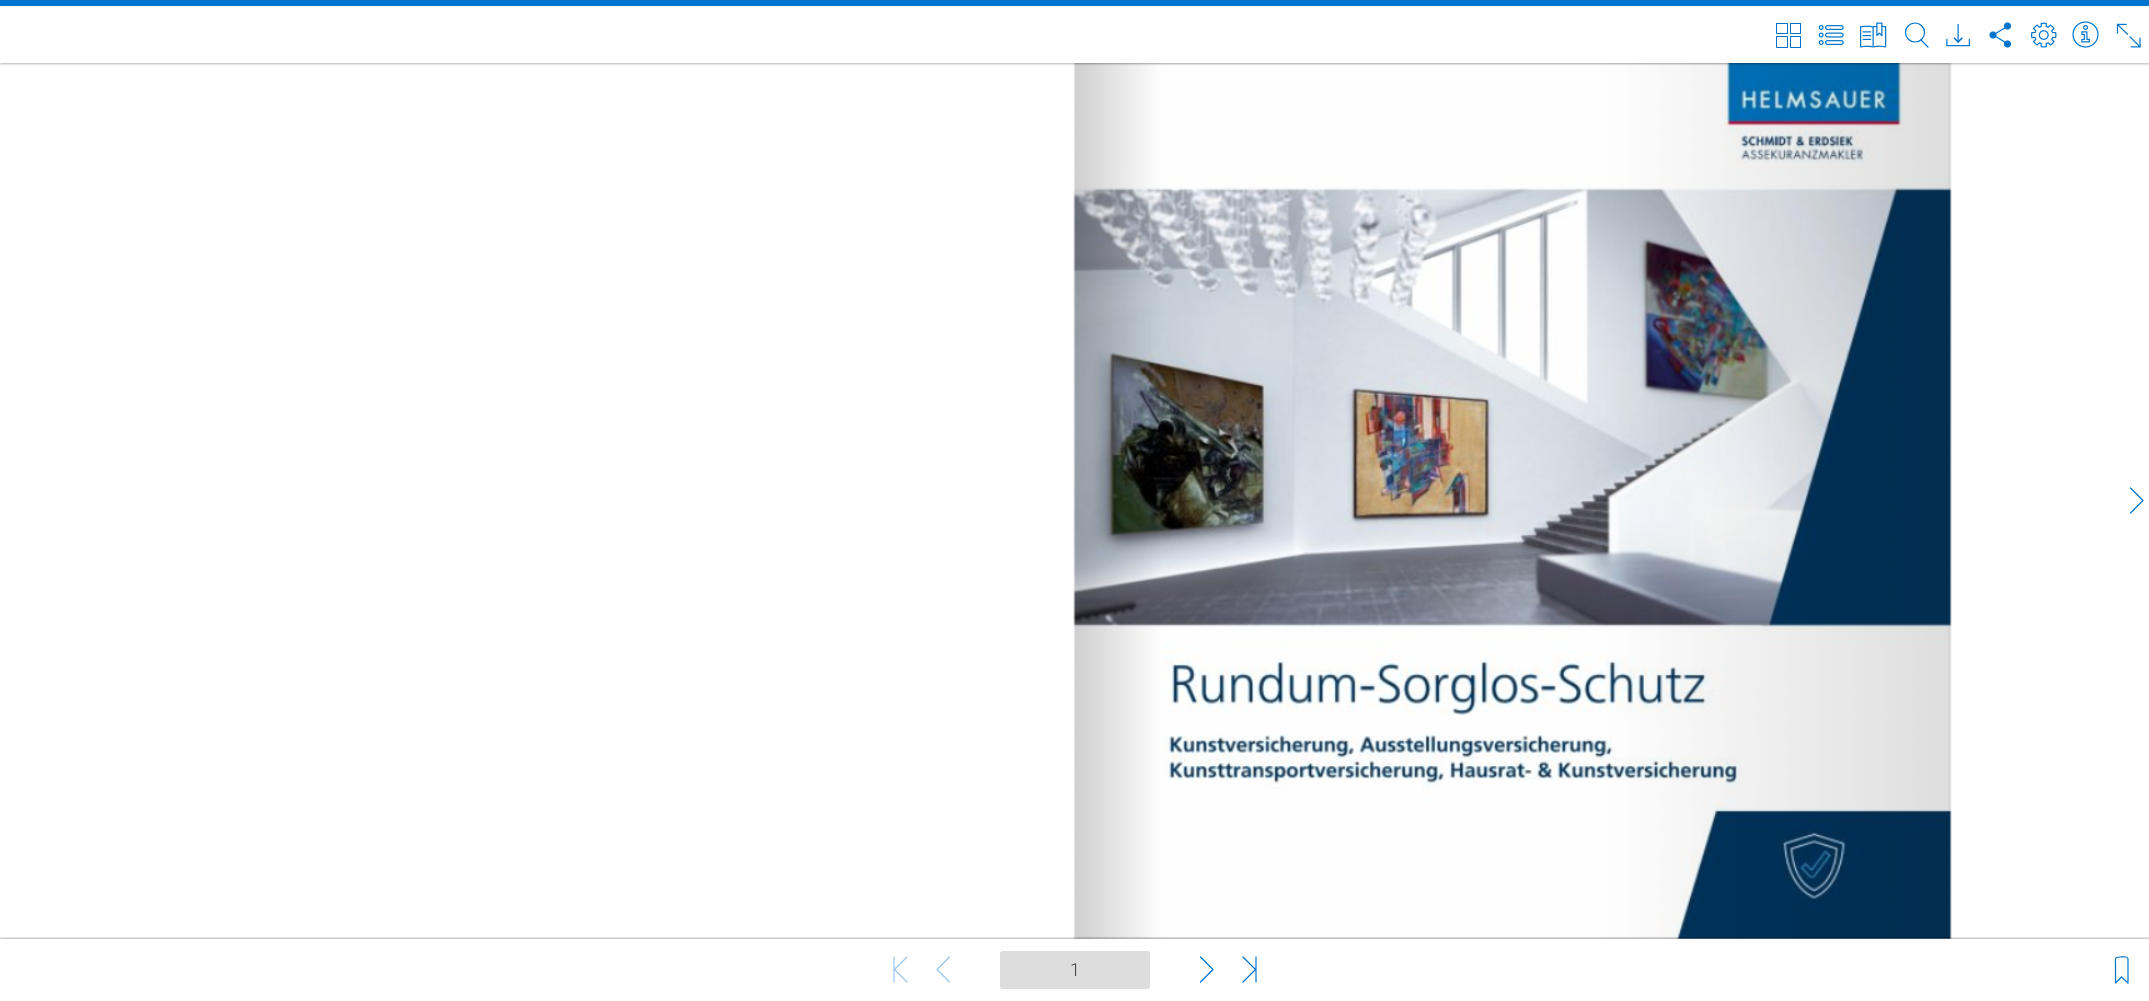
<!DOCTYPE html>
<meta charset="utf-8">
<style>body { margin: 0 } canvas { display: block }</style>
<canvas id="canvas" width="2149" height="1001"></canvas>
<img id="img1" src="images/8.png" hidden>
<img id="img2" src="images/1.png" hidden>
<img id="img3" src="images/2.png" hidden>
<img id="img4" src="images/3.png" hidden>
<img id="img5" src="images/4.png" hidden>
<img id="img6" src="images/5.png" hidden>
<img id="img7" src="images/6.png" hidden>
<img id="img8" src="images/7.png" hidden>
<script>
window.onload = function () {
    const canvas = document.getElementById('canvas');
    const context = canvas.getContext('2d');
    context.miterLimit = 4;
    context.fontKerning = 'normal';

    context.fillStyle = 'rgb(255, 255, 255)';
    context.fillRect(0, 0, 2149, 1001);
    context.drawImage(document.getElementById('img1'), 0, 63, 2149, 938);
    context.fillStyle = 'rgba(0, 0, 0, 0.3)';
    context.filter = 'blur(1px)';
    context.beginPath();
    context.rect(0, 1, 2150, 63);
    context.fill();
    context.filter = 'none';
    context.fillStyle = 'rgb(255, 255, 255)';
    context.fillRect(0, 6, 2149, 57);
    context.fillStyle = 'rgb(0, 115, 205)';
    context.fillRect(0, 0, 2149, 6);
    context.strokeStyle = 'rgb(0, 115, 205)';
    context.strokeRect(1776.5, 23.5, 11, 10);
    context.strokeRect(1790.5, 23.5, 10, 10);
    context.strokeRect(1776.5, 36.5, 11, 11);
    context.strokeRect(1790.5, 36.5, 10, 11);
    context.drawImage(document.getElementById('img2'), 1818, 25, 26, 20);
    context.drawImage(document.getElementById('img3'), 1860, 22, 27, 26);
    context.beginPath();
    context.arc(1915, 32.5, 9.5, 0, 2 * Math.PI);
    context.lineWidth = 1.2;
    context.stroke();
    context.beginPath();
    context.moveTo(1928, 47);
    context.lineTo(1921, 40);
    context.lineCap = 'round';
    context.lineJoin = 'round';
    context.stroke();
    context.drawImage(document.getElementById('img4'), 1946, 23, 24, 24);
    context.drawImage(document.getElementById('img5'), 1989, 22, 23, 26);
    context.drawImage(document.getElementById('img6'), 2031, 22, 26, 26);
    context.drawImage(document.getElementById('img7'), 2072, 21, 27, 27);
    context.drawImage(document.getElementById('img8'), 2116, 23, 25, 25);
    context.beginPath();
    context.moveTo(2130.5, 488);
    context.lineTo(2143, 500.5);
    context.lineTo(2130.5, 513);
    context.stroke();
    context.save();
    context.beginPath();
    context.rect(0, 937, 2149, 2);
    context.clip();
    context.fillStyle = 'rgba(0, 0, 0, 0.3)';
    context.filter = 'blur(1px)';
    context.beginPath();
    context.rect(0, 938, 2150, 62);
    context.fill();
    context.filter = 'none';
    context.restore();
    context.beginPath();
    context.moveTo(907, 957);
    context.lineTo(894.5, 969.5);
    context.lineTo(907, 982);
    context.moveTo(894, 957);
    context.lineTo(894, 982);
    context.moveTo(949.5, 957);
    context.lineTo(937, 969.5);
    context.lineTo(949.5, 982);
    context.strokeStyle = 'rgb(153, 199, 235)';
    context.stroke();
    context.fillStyle = 'rgb(221, 221, 221)';
    context.beginPath();
    context.roundRect(1000, 951, 150, 38, 2.5);
    context.fill();
    context.beginPath();
    context.moveTo(1200.5, 957);
    context.lineTo(1213, 969.5);
    context.lineTo(1200.5, 982);
    context.moveTo(1243, 957);
    context.lineTo(1255.5, 969.5);
    context.lineTo(1243, 982);
    context.moveTo(1256, 957);
    context.lineTo(1256, 982);
    context.strokeStyle = 'rgb(0, 115, 205)';
    context.stroke();
    context.beginPath();
    context.moveTo(2128, 959);
    context.bezierCurveTo(2128, 956, 2122.5, 957, 2120.5, 957);
    context.bezierCurveTo(2114, 957, 2115.5, 958, 2115.5, 965);
    context.lineTo(2115.5, 983);
    context.lineTo(2121.5, 977);
    context.lineTo(2128, 983);
    context.closePath();
    context.stroke();
    context.font = '300 18px Roboto';
    context.fillStyle = 'rgb(64, 64, 64)';
    context.fillText('1', 1070, 976);
};
</script>
